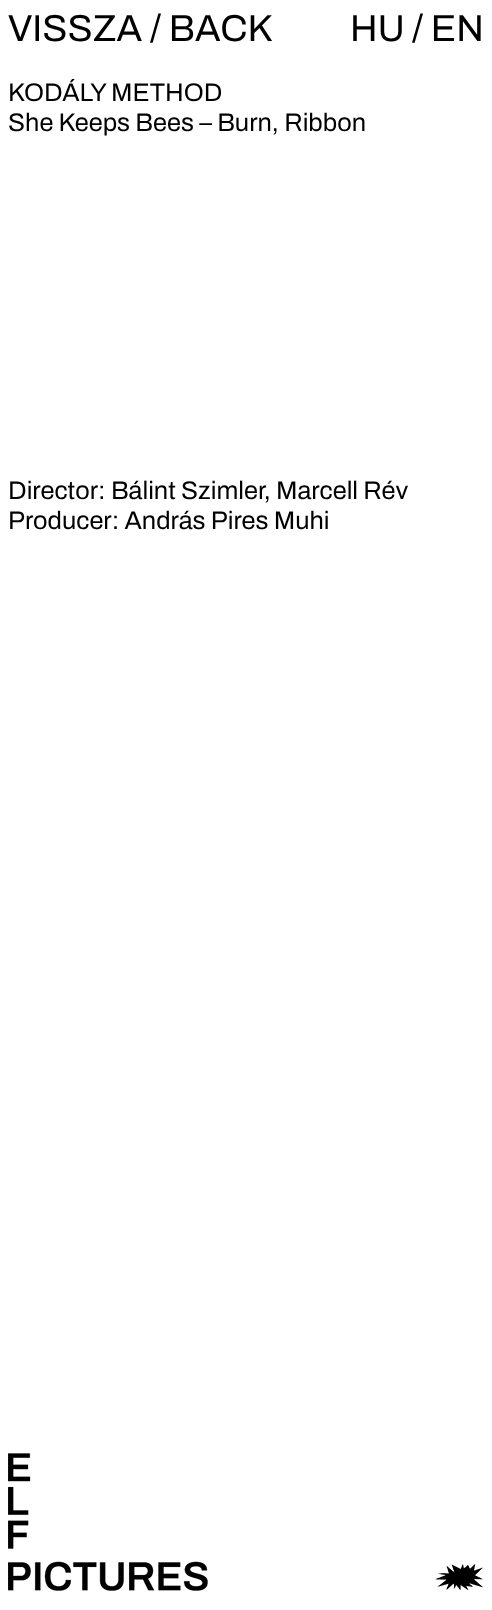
<!DOCTYPE html>
<meta charset="utf-8">
<style>body { margin: 0 } canvas { display: block }</style>
<canvas id="canvas" width="492" height="1610"></canvas>
<img id="img1" src="images/1.png" hidden>
<img id="img2" src="images/2.png" hidden>
<script>
window.onload = function () {
    const canvas = document.getElementById('canvas');
    const context = canvas.getContext('2d');
    context.miterLimit = 4;
    context.fontKerning = 'normal';

    context.fillStyle = 'rgb(255, 255, 255)';
    context.fillRect(0, 0, 492, 1610);
    context.drawImage(document.getElementById('img1'), 8, 1453, 200, 138);
    context.drawImage(document.getElementById('img2'), 435, 1564, 48, 26);
    context.font = '600 37.5px Archivo';
    context.fillStyle = 'rgb(0, 0, 0)';
    context.fillText('VISSZA / BACK', 8, 41);
    context.font = '600 25.4px Archivo';
    context.fillText('KODÁLY METHOD', 8, 101);
    context.fillText('She Keeps Bees – Burn, Ribbon', 8, 131);
    context.fillText('Director: Bálint Szimler, Marcell Rév', 8, 499);
    context.fillText('Producer: András Pires Muhi', 8, 529);
    context.font = '600 37.5px Archivo';
    context.fillText('HU', 350, 41);
    context.fillText('/ EN', 412, 41);
};
</script>
